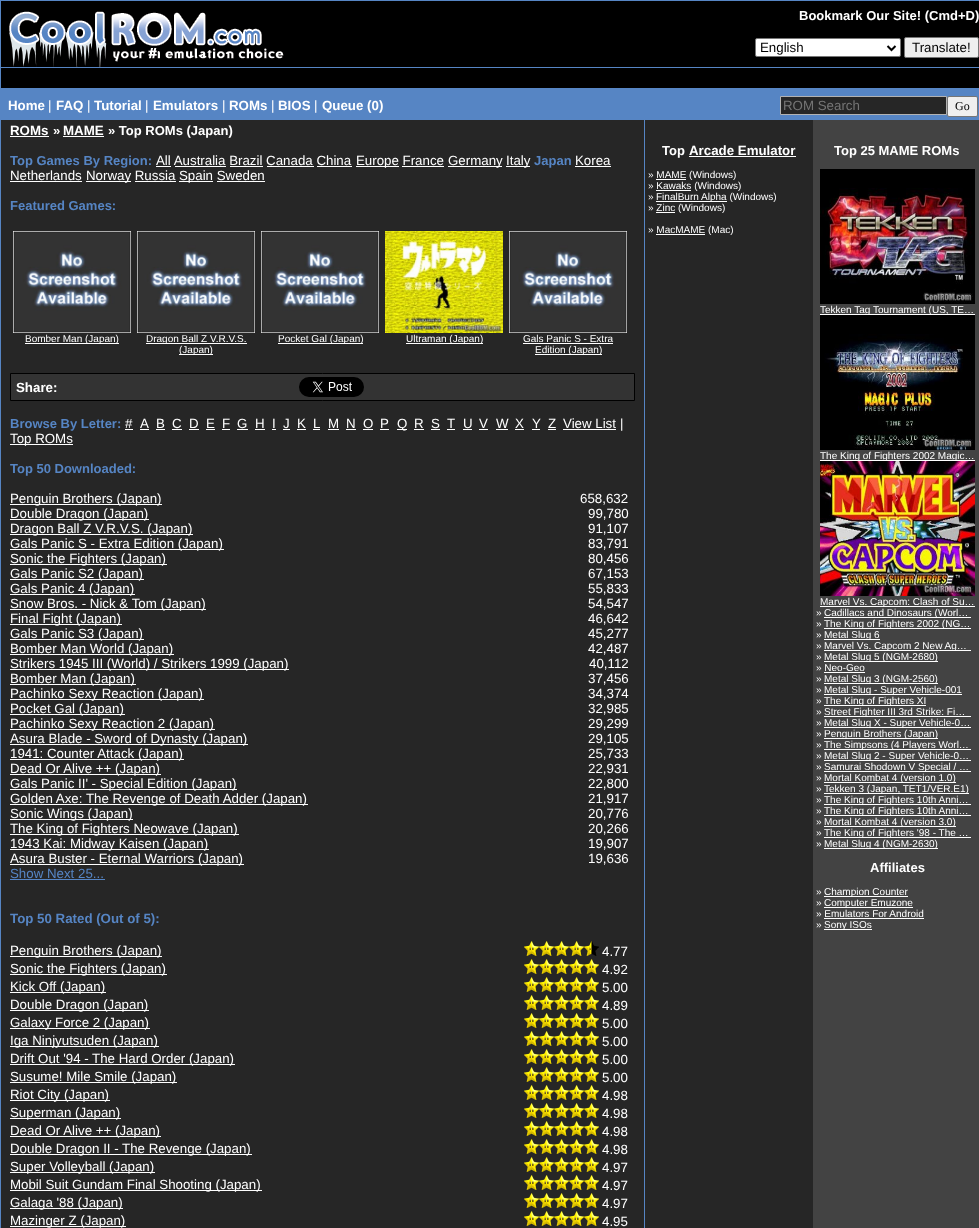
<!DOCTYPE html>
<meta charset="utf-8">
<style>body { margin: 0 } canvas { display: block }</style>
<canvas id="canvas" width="979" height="1228"></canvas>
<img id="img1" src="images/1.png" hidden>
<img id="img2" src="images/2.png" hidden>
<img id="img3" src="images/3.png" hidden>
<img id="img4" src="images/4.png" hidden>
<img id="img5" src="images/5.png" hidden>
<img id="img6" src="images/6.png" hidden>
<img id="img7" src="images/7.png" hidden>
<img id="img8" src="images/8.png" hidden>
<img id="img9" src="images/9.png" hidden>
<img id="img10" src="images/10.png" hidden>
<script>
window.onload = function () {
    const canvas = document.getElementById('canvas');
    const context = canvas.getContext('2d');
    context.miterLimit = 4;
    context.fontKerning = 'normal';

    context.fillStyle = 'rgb(86, 133, 196)';
    context.fillRect(0, 0, 979, 1228);
    context.fillStyle = 'rgb(0, 0, 0)';
    context.fillRect(1, 1, 978, 66);
    context.drawImage(document.getElementById('img1'), 9, 11, 275, 56);
    context.fillStyle = 'rgb(255, 255, 255)';
    context.beginPath();
    context.roundRect(755.5, 38.5, 145, 18, 1.5);
    context.fill();
    context.strokeStyle = 'rgb(118, 118, 118)';
    context.stroke();
    context.beginPath();
    context.moveTo(887.5, 46);
    context.lineTo(891.5, 50);
    context.lineTo(895.5, 46);
    context.strokeStyle = 'rgb(0, 0, 0)';
    context.lineWidth = 2;
    context.stroke();
    context.fillStyle = 'rgb(239, 239, 239)';
    context.beginPath();
    context.roundRect(904.5, 37.5, 74, 20, 1.5);
    context.fill();
    context.strokeStyle = 'rgb(118, 118, 118)';
    context.lineWidth = 1;
    context.stroke();
    context.fillStyle = 'rgb(0, 0, 0)';
    context.fillRect(1, 68, 978, 20);
    context.fillStyle = 'rgb(38, 38, 38)';
    context.beginPath();
    context.rect(780.5, 96.5, 166, 18);
    context.fill();
    context.strokeStyle = 'rgb(178, 178, 178)';
    context.stroke();
    context.fillStyle = 'rgb(239, 239, 239)';
    context.beginPath();
    context.roundRect(947.5, 96.5, 30, 20, 1.5);
    context.fill();
    context.strokeStyle = 'rgb(118, 118, 118)';
    context.stroke();
    context.fillStyle = 'rgb(38, 38, 38)';
    context.fillRect(1, 120, 643, 1108);
    context.fillStyle = 'rgb(255, 255, 255)';
    context.fillRect(10, 136, 39, 1);
    context.fillRect(63, 136, 41, 1);
    context.fillRect(156, 166, 15, 1);
    context.fillRect(356, 166, 43, 1);
    context.fillRect(448, 166, 54, 1);
    context.fillRect(506, 166, 24, 1);
    context.fillRect(575, 166, 36, 1);
    context.fillRect(175, 166, 51, 1);
    context.fillRect(230, 166, 33, 1);
    context.fillRect(267, 166, 47, 1);
    context.fillRect(317, 166, 35, 1);
    context.fillRect(402, 166, 42, 1);
    context.fillRect(10, 181, 72, 1);
    context.fillRect(86, 181, 45, 1);
    context.fillRect(179, 181, 34, 1);
    context.fillRect(135, 181, 41, 1);
    context.fillRect(217, 181, 48, 1);
    context.drawImage(document.getElementById('img2'), 13, 231, 118, 102);
    context.fillRect(25, 343, 94, 1);
    context.drawImage(document.getElementById('img3'), 137, 231, 118, 102);
    context.fillRect(146, 343, 101, 1);
    context.fillRect(179, 354, 34, 1);
    context.drawImage(document.getElementById('img2'), 261, 231, 118, 102);
    context.fillRect(278, 343, 85, 1);
    context.drawImage(document.getElementById('img4'), 385, 231, 118, 102);
    context.fillRect(406, 343, 77, 1);
    context.drawImage(document.getElementById('img2'), 509, 231, 118, 102);
    context.fillRect(523, 343, 90, 1);
    context.fillRect(535, 354, 67, 1);
    context.fillStyle = 'rgb(51, 51, 51)';
    context.beginPath();
    context.rect(10.5, 373.5, 624, 27);
    context.fill();
    context.strokeStyle = 'rgb(0, 0, 0)';
    context.stroke();
    context.drawImage(document.getElementById('img5'), 299, 377, 65, 20);
    context.fillStyle = 'rgb(255, 255, 255)';
    context.fillRect(125, 429, 8, 1);
    context.fillRect(140, 429, 9, 1);
    context.fillRect(156, 429, 9, 1);
    context.fillRect(172, 429, 10, 1);
    context.fillRect(189, 429, 10, 1);
    context.fillRect(206, 429, 9, 1);
    context.fillRect(222, 429, 8, 1);
    context.fillRect(237, 429, 11, 1);
    context.fillRect(255, 429, 10, 1);
    context.fillRect(272, 429, 4, 1);
    context.fillRect(283, 429, 7, 1);
    context.fillRect(297, 429, 9, 1);
    context.fillRect(313, 429, 7, 1);
    context.fillRect(328, 429, 11, 1);
    context.fillRect(346, 429, 10, 1);
    context.fillRect(363, 429, 10, 1);
    context.fillRect(380, 429, 9, 1);
    context.fillRect(397, 429, 10, 1);
    context.fillRect(414, 429, 10, 1);
    context.fillRect(431, 429, 9, 1);
    context.fillRect(447, 429, 8, 1);
    context.fillRect(463, 429, 9, 1);
    context.fillRect(479, 429, 9, 1);
    context.fillRect(496, 429, 12, 1);
    context.fillRect(515, 429, 9, 1);
    context.fillRect(532, 429, 8, 1);
    context.fillRect(548, 429, 8, 1);
    context.fillRect(563, 429, 53, 1);
    context.fillRect(10, 444, 63, 1);
    context.fillRect(10, 504, 152, 1);
    context.fillRect(10, 519, 139, 1);
    context.fillRect(10, 534, 183, 1);
    context.fillRect(10, 549, 214, 1);
    context.fillRect(10, 564, 157, 1);
    context.fillRect(10, 579, 134, 1);
    context.fillRect(10, 594, 125, 1);
    context.fillRect(10, 609, 196, 1);
    context.fillRect(10, 624, 112, 1);
    context.fillRect(10, 639, 134, 1);
    context.fillRect(10, 654, 164, 1);
    context.fillRect(10, 669, 279, 1);
    context.fillRect(10, 684, 126, 1);
    context.fillRect(10, 699, 194, 1);
    context.fillRect(10, 714, 115, 1);
    context.fillRect(10, 729, 205, 1);
    context.fillRect(10, 744, 238, 1);
    context.fillRect(10, 759, 174, 1);
    context.fillRect(10, 774, 151, 1);
    context.fillRect(10, 789, 227, 1);
    context.fillRect(10, 804, 298, 1);
    context.fillRect(10, 819, 123, 1);
    context.fillRect(10, 834, 229, 1);
    context.fillRect(10, 849, 199, 1);
    context.fillRect(10, 864, 234, 1);
    context.fillStyle = 'rgb(86, 133, 196)';
    context.fillRect(10, 879, 95, 1);
    context.fillStyle = 'rgb(255, 255, 255)';
    context.fillRect(10, 956, 152, 1);
    context.drawImage(document.getElementById('img6'), 524, 941, 15, 15);
    context.drawImage(document.getElementById('img6'), 539, 941, 15, 15);
    context.drawImage(document.getElementById('img6'), 554, 941, 15, 15);
    context.drawImage(document.getElementById('img6'), 569, 941, 15, 15);
    context.drawImage(document.getElementById('img7'), 584, 941, 15, 15);
    context.fillRect(10, 974, 157, 1);
    context.drawImage(document.getElementById('img6'), 524, 959, 15, 15);
    context.drawImage(document.getElementById('img6'), 539, 959, 15, 15);
    context.drawImage(document.getElementById('img6'), 554, 959, 15, 15);
    context.drawImage(document.getElementById('img6'), 569, 959, 15, 15);
    context.drawImage(document.getElementById('img6'), 584, 959, 15, 15);
    context.fillRect(10, 992, 96, 1);
    context.drawImage(document.getElementById('img6'), 524, 977, 15, 15);
    context.drawImage(document.getElementById('img6'), 539, 977, 15, 15);
    context.drawImage(document.getElementById('img6'), 554, 977, 15, 15);
    context.drawImage(document.getElementById('img6'), 569, 977, 15, 15);
    context.drawImage(document.getElementById('img6'), 584, 977, 15, 15);
    context.fillRect(10, 1010, 139, 1);
    context.drawImage(document.getElementById('img6'), 524, 995, 15, 15);
    context.drawImage(document.getElementById('img6'), 539, 995, 15, 15);
    context.drawImage(document.getElementById('img6'), 554, 995, 15, 15);
    context.drawImage(document.getElementById('img6'), 569, 995, 15, 15);
    context.drawImage(document.getElementById('img6'), 584, 995, 15, 15);
    context.fillRect(10, 1028, 140, 1);
    context.drawImage(document.getElementById('img6'), 524, 1013, 15, 15);
    context.drawImage(document.getElementById('img6'), 539, 1013, 15, 15);
    context.drawImage(document.getElementById('img6'), 554, 1013, 15, 15);
    context.drawImage(document.getElementById('img6'), 569, 1013, 15, 15);
    context.drawImage(document.getElementById('img6'), 584, 1013, 15, 15);
    context.fillRect(10, 1046, 149, 1);
    context.drawImage(document.getElementById('img6'), 524, 1031, 15, 15);
    context.drawImage(document.getElementById('img6'), 539, 1031, 15, 15);
    context.drawImage(document.getElementById('img6'), 554, 1031, 15, 15);
    context.drawImage(document.getElementById('img6'), 569, 1031, 15, 15);
    context.drawImage(document.getElementById('img6'), 584, 1031, 15, 15);
    context.fillRect(10, 1064, 225, 1);
    context.drawImage(document.getElementById('img6'), 524, 1049, 15, 15);
    context.drawImage(document.getElementById('img6'), 539, 1049, 15, 15);
    context.drawImage(document.getElementById('img6'), 554, 1049, 15, 15);
    context.drawImage(document.getElementById('img6'), 569, 1049, 15, 15);
    context.drawImage(document.getElementById('img6'), 584, 1049, 15, 15);
    context.fillRect(10, 1082, 167, 1);
    context.drawImage(document.getElementById('img6'), 524, 1067, 15, 15);
    context.drawImage(document.getElementById('img6'), 539, 1067, 15, 15);
    context.drawImage(document.getElementById('img6'), 554, 1067, 15, 15);
    context.drawImage(document.getElementById('img6'), 569, 1067, 15, 15);
    context.drawImage(document.getElementById('img6'), 584, 1067, 15, 15);
    context.fillRect(10, 1100, 100, 1);
    context.drawImage(document.getElementById('img6'), 524, 1085, 15, 15);
    context.drawImage(document.getElementById('img6'), 539, 1085, 15, 15);
    context.drawImage(document.getElementById('img6'), 554, 1085, 15, 15);
    context.drawImage(document.getElementById('img6'), 569, 1085, 15, 15);
    context.drawImage(document.getElementById('img6'), 584, 1085, 15, 15);
    context.fillRect(10, 1118, 111, 1);
    context.drawImage(document.getElementById('img6'), 524, 1103, 15, 15);
    context.drawImage(document.getElementById('img6'), 539, 1103, 15, 15);
    context.drawImage(document.getElementById('img6'), 554, 1103, 15, 15);
    context.drawImage(document.getElementById('img6'), 569, 1103, 15, 15);
    context.drawImage(document.getElementById('img6'), 584, 1103, 15, 15);
    context.fillRect(10, 1136, 151, 1);
    context.drawImage(document.getElementById('img6'), 524, 1121, 15, 15);
    context.drawImage(document.getElementById('img6'), 539, 1121, 15, 15);
    context.drawImage(document.getElementById('img6'), 554, 1121, 15, 15);
    context.drawImage(document.getElementById('img6'), 569, 1121, 15, 15);
    context.drawImage(document.getElementById('img6'), 584, 1121, 15, 15);
    context.fillRect(10, 1154, 242, 1);
    context.drawImage(document.getElementById('img6'), 524, 1139, 15, 15);
    context.drawImage(document.getElementById('img6'), 539, 1139, 15, 15);
    context.drawImage(document.getElementById('img6'), 554, 1139, 15, 15);
    context.drawImage(document.getElementById('img6'), 569, 1139, 15, 15);
    context.drawImage(document.getElementById('img6'), 584, 1139, 15, 15);
    context.fillRect(10, 1172, 145, 1);
    context.drawImage(document.getElementById('img6'), 524, 1157, 15, 15);
    context.drawImage(document.getElementById('img6'), 539, 1157, 15, 15);
    context.drawImage(document.getElementById('img6'), 554, 1157, 15, 15);
    context.drawImage(document.getElementById('img6'), 569, 1157, 15, 15);
    context.drawImage(document.getElementById('img6'), 584, 1157, 15, 15);
    context.fillRect(10, 1190, 252, 1);
    context.drawImage(document.getElementById('img6'), 524, 1175, 15, 15);
    context.drawImage(document.getElementById('img6'), 539, 1175, 15, 15);
    context.drawImage(document.getElementById('img6'), 554, 1175, 15, 15);
    context.drawImage(document.getElementById('img6'), 569, 1175, 15, 15);
    context.drawImage(document.getElementById('img6'), 584, 1175, 15, 15);
    context.fillRect(10, 1208, 113, 1);
    context.drawImage(document.getElementById('img6'), 524, 1193, 15, 15);
    context.drawImage(document.getElementById('img6'), 539, 1193, 15, 15);
    context.drawImage(document.getElementById('img6'), 554, 1193, 15, 15);
    context.drawImage(document.getElementById('img6'), 569, 1193, 15, 15);
    context.drawImage(document.getElementById('img6'), 584, 1193, 15, 15);
    context.fillRect(10, 1226, 116, 1);
    context.drawImage(document.getElementById('img6'), 524, 1211, 15, 15);
    context.drawImage(document.getElementById('img6'), 539, 1211, 15, 15);
    context.drawImage(document.getElementById('img6'), 554, 1211, 15, 15);
    context.drawImage(document.getElementById('img6'), 569, 1211, 15, 15);
    context.drawImage(document.getElementById('img6'), 584, 1211, 15, 15);
    context.fillStyle = 'rgb(38, 38, 38)';
    context.fillRect(645, 120, 168, 20);
    context.fillStyle = 'rgb(67, 67, 67)';
    context.fillRect(813, 120, 166, 20);
    context.fillStyle = 'rgb(38, 38, 38)';
    context.fillRect(645, 140, 168, 1088);
    context.fillStyle = 'rgb(255, 255, 255)';
    context.fillRect(689, 156, 107, 1);
    context.fillRect(656, 179, 30, 1);
    context.fillRect(656, 190, 35, 1);
    context.fillRect(656, 201, 71, 1);
    context.fillRect(656, 212, 19, 1);
    context.fillRect(656, 234, 49, 1);
    context.fillStyle = 'rgb(67, 67, 67)';
    context.fillRect(813, 140, 166, 1088);
    context.drawImage(document.getElementById('img8'), 820, 169, 155, 135);
    context.fillStyle = 'rgb(255, 255, 255)';
    context.fillRect(820, 314, 155, 1);
    context.drawImage(document.getElementById('img9'), 820, 315, 155, 135);
    context.fillRect(820, 460, 155, 1);
    context.drawImage(document.getElementById('img10'), 820, 461, 155, 135);
    context.fillRect(820, 606, 155, 1);
    context.fillRect(824, 617, 147, 1);
    context.fillRect(824, 628, 147, 1);
    context.fillRect(824, 639, 56, 1);
    context.fillRect(824, 650, 147, 1);
    context.fillRect(824, 661, 114, 1);
    context.fillRect(824, 672, 41, 1);
    context.fillRect(824, 683, 114, 1);
    context.fillRect(824, 694, 138, 1);
    context.fillRect(824, 705, 102, 1);
    context.fillRect(824, 716, 147, 1);
    context.fillRect(824, 727, 147, 1);
    context.fillRect(824, 738, 114, 1);
    context.fillRect(824, 749, 147, 1);
    context.fillRect(824, 760, 147, 1);
    context.fillRect(824, 771, 147, 1);
    context.fillRect(824, 782, 132, 1);
    context.fillRect(824, 793, 145, 1);
    context.fillRect(824, 804, 147, 1);
    context.fillRect(824, 815, 147, 1);
    context.fillRect(824, 826, 132, 1);
    context.fillRect(824, 837, 147, 1);
    context.fillRect(824, 848, 114, 1);
    context.fillRect(824, 896, 84, 1);
    context.fillRect(824, 907, 89, 1);
    context.fillRect(824, 918, 100, 1);
    context.fillRect(824, 929, 48, 1);
    context.font = 'bold 13px Liberation Sans';
    context.fillText('Bookmark Our Site! (Cmd+D)', 799, 20);
    context.font = '13.3px Liberation Sans';
    context.fillStyle = 'rgb(0, 0, 0)';
    context.fillText('English', 760, 52);
    context.fillText('Translate!', 912, 52);
    context.font = 'bold 13.3px Liberation Sans';
    context.fillStyle = 'rgb(255, 255, 255)';
    context.fillText('Home', 8, 110);
    context.font = '13.3px Liberation Sans';
    context.fillText('|', 48, 110);
    context.font = 'bold 13.3px Liberation Sans';
    context.fillText('FAQ', 56, 110);
    context.font = '13.3px Liberation Sans';
    context.fillText('|', 87, 110);
    context.font = 'bold 13.3px Liberation Sans';
    context.fillText('Tutorial', 94, 110);
    context.font = '13.3px Liberation Sans';
    context.fillText('|', 145, 110);
    context.font = 'bold 13.3px Liberation Sans';
    context.fillText('Emulators', 153, 110);
    context.font = '13.3px Liberation Sans';
    context.fillText('|', 222, 110);
    context.font = 'bold 13.3px Liberation Sans';
    context.fillText('ROMs', 229, 110);
    context.font = '13.3px Liberation Sans';
    context.fillText('|', 271, 110);
    context.font = 'bold 13.3px Liberation Sans';
    context.fillText('BIOS', 278, 110);
    context.font = '13.3px Liberation Sans';
    context.fillText('|', 314, 110);
    context.font = 'bold 13.3px Liberation Sans';
    context.fillText('Queue (0)', 322, 110);
    context.font = '13.3px Liberation Sans';
    context.fillStyle = 'rgb(117, 117, 117)';
    context.fillText('ROM Search', 783, 110);
    context.font = '12px Liberation Serif';
    context.fillStyle = 'rgb(0, 0, 0)';
    context.fillText('Go', 955, 110);
    context.font = 'bold 13.3px Liberation Sans';
    context.fillStyle = 'rgb(255, 255, 255)';
    context.fillText('ROMs', 10, 135);
    context.font = 'bold 13px Liberation Sans';
    context.fillText('»', 53, 135);
    context.font = 'bold 13.3px Liberation Sans';
    context.fillText('MAME', 63, 135);
    context.font = 'bold 13px Liberation Sans';
    context.fillText('» Top ROMs (Japan)', 108, 135);
    context.fillStyle = 'rgb(86, 133, 196)';
    context.fillText('Top Games By Region:', 10, 165);
    context.font = '13.3px Liberation Sans';
    context.fillStyle = 'rgb(255, 255, 255)';
    context.fillText('All Australia Brazil Canada China', 156, 165);
    context.fillText('Europe France', 356, 165);
    context.fillText('Germany', 448, 165);
    context.fillText('Italy', 506, 165);
    context.font = 'bold 13px Liberation Sans';
    context.fillStyle = 'rgb(86, 133, 196)';
    context.fillText('Japan', 534, 165);
    context.font = '13.3px Liberation Sans';
    context.fillStyle = 'rgb(255, 255, 255)';
    context.fillText('Korea', 575, 165);
    context.fillText('Netherlands', 10, 180);
    context.fillText('Norway Russia', 86, 180);
    context.fillText('Spain Sweden', 179, 180);
    context.font = 'bold 13px Liberation Sans';
    context.fillStyle = 'rgb(86, 133, 196)';
    context.fillText('Featured Games:', 10, 210);
    context.font = '10px Liberation Sans';
    context.fillStyle = 'rgb(255, 255, 255)';
    context.fillText('Bomber Man (Japan)', 25, 342);
    context.fillText('Dragon Ball Z V.R.V.S.', 146, 342);
    context.fillText('(Japan)', 179, 353);
    context.fillText('Pocket Gal (Japan)', 278, 342);
    context.fillText('Ultraman (Japan)', 406, 342);
    context.fillText('Gals Panic S - Extra', 523, 342);
    context.fillText('Edition (Japan)', 535, 353);
    context.font = 'bold 13.3px Liberation Sans';
    context.fillText('Share:', 16, 392);
    context.font = 'bold 13px Liberation Sans';
    context.fillStyle = 'rgb(86, 133, 196)';
    context.fillText('Browse By Letter:', 10, 428);
    context.font = '13.3px Liberation Sans';
    context.fillStyle = 'rgb(255, 255, 255)';
    context.fillText('#', 125, 428);
    context.fillText('A', 140, 428);
    context.fillText('B', 156, 428);
    context.fillText('C', 172, 428);
    context.fillText('D', 189, 428);
    context.fillText('E', 206, 428);
    context.fillText('F', 222, 428);
    context.fillText('G', 237, 428);
    context.fillText('H', 255, 428);
    context.fillText('I', 272, 428);
    context.fillText('J', 283, 428);
    context.fillText('K', 297, 428);
    context.fillText('L', 313, 428);
    context.fillText('M', 328, 428);
    context.fillText('N', 346, 428);
    context.fillText('O', 363, 428);
    context.fillText('P', 380, 428);
    context.fillText('Q', 397, 428);
    context.fillText('R', 414, 428);
    context.fillText('S', 431, 428);
    context.fillText('T', 447, 428);
    context.fillText('U', 463, 428);
    context.fillText('V', 479, 428);
    context.fillText('W', 496, 428);
    context.fillText('X', 515, 428);
    context.fillText('Y', 532, 428);
    context.fillText('Z', 548, 428);
    context.fillText('View List', 563, 428);
    context.font = '13px Liberation Sans';
    context.fillText('|', 620, 428);
    context.font = '13.3px Liberation Sans';
    context.fillText('Top ROMs', 10, 443);
    context.font = 'bold 13px Liberation Sans';
    context.fillStyle = 'rgb(86, 133, 196)';
    context.fillText('Top 50 Downloaded:', 10, 473);
    context.font = '13.3px Liberation Sans';
    context.fillStyle = 'rgb(255, 255, 255)';
    context.fillText('Penguin Brothers (Japan)', 10, 503);
    context.fillText('658,632', 580, 503);
    context.fillText('Double Dragon (Japan)', 10, 518);
    context.fillText('99,780', 588, 518);
    context.fillText('Dragon Ball Z V.R.V.S. (Japan)', 10, 533);
    context.fillText('91,107', 588, 533);
    context.fillText('Gals Panic S - Extra Edition (Japan)', 10, 548);
    context.fillText('83,791', 588, 548);
    context.fillText('Sonic the Fighters (Japan)', 10, 563);
    context.fillText('80,456', 588, 563);
    context.fillText('Gals Panic S2 (Japan)', 10, 578);
    context.fillText('67,153', 588, 578);
    context.fillText('Gals Panic 4 (Japan)', 10, 593);
    context.fillText('55,833', 588, 593);
    context.fillText('Snow Bros. - Nick & Tom (Japan)', 10, 608);
    context.fillText('54,547', 588, 608);
    context.fillText('Final Fight (Japan)', 10, 623);
    context.fillText('46,642', 588, 623);
    context.fillText('Gals Panic S3 (Japan)', 10, 638);
    context.fillText('45,277', 588, 638);
    context.fillText('Bomber Man World (Japan)', 10, 653);
    context.fillText('42,487', 588, 653);
    context.fillText('Strikers 1945 III (World) / Strikers 1999 (Japan)', 10, 668);
    context.fillText('40,112', 589, 668);
    context.fillText('Bomber Man (Japan)', 10, 683);
    context.fillText('37,456', 588, 683);
    context.fillText('Pachinko Sexy Reaction (Japan)', 10, 698);
    context.fillText('34,374', 588, 698);
    context.fillText('Pocket Gal (Japan)', 10, 713);
    context.fillText('32,985', 588, 713);
    context.fillText('Pachinko Sexy Reaction 2 (Japan)', 10, 728);
    context.fillText('29,299', 588, 728);
    context.fillText('Asura Blade - Sword of Dynasty (Japan)', 10, 743);
    context.fillText('29,105', 588, 743);
    context.fillText('1941: Counter Attack (Japan)', 10, 758);
    context.fillText('25,733', 588, 758);
    context.fillText('Dead Or Alive ++ (Japan)', 10, 773);
    context.fillText('22,931', 588, 773);
    context.fillText('Gals Panic II\' - Special Edition (Japan)', 10, 788);
    context.fillText('22,800', 588, 788);
    context.fillText('Golden Axe: The Revenge of Death Adder (Japan)', 10, 803);
    context.fillText('21,917', 588, 803);
    context.fillText('Sonic Wings (Japan)', 10, 818);
    context.fillText('20,776', 588, 818);
    context.fillText('The King of Fighters Neowave (Japan)', 10, 833);
    context.fillText('20,266', 588, 833);
    context.fillText('1943 Kai: Midway Kaisen (Japan)', 10, 848);
    context.fillText('19,907', 588, 848);
    context.fillText('Asura Buster - Eternal Warriors (Japan)', 10, 863);
    context.fillText('19,636', 588, 863);
    context.fillStyle = 'rgb(86, 133, 196)';
    context.fillText('Show Next 25...', 10, 878);
    context.font = 'bold 13.3px Liberation Sans';
    context.fillText('Top 50 Rated (Out of 5):', 10, 923);
    context.font = '13.3px Liberation Sans';
    context.fillStyle = 'rgb(255, 255, 255)';
    context.fillText('Penguin Brothers (Japan)', 10, 955);
    context.fillText('4.77', 602, 956);
    context.fillText('Sonic the Fighters (Japan)', 10, 973);
    context.fillText('4.92', 602, 974);
    context.fillText('Kick Off (Japan)', 10, 991);
    context.fillText('5.00', 602, 992);
    context.fillText('Double Dragon (Japan)', 10, 1009);
    context.fillText('4.89', 602, 1010);
    context.fillText('Galaxy Force 2 (Japan)', 10, 1027);
    context.fillText('5.00', 602, 1028);
    context.fillText('Iga Ninjyutsuden (Japan)', 10, 1045);
    context.fillText('5.00', 602, 1046);
    context.fillText('Drift Out \'94 - The Hard Order (Japan)', 10, 1063);
    context.fillText('5.00', 602, 1064);
    context.fillText('Susume! Mile Smile (Japan)', 10, 1081);
    context.fillText('5.00', 602, 1082);
    context.fillText('Riot City (Japan)', 10, 1099);
    context.fillText('4.98', 602, 1100);
    context.fillText('Superman (Japan)', 10, 1117);
    context.fillText('4.98', 602, 1118);
    context.fillText('Dead Or Alive ++ (Japan)', 10, 1135);
    context.fillText('4.98', 602, 1136);
    context.fillText('Double Dragon II - The Revenge (Japan)', 10, 1153);
    context.fillText('4.98', 602, 1154);
    context.fillText('Super Volleyball (Japan)', 10, 1171);
    context.fillText('4.97', 602, 1172);
    context.fillText('Mobil Suit Gundam Final Shooting (Japan)', 10, 1189);
    context.fillText('4.97', 602, 1190);
    context.fillText('Galaga \'88 (Japan)', 10, 1207);
    context.fillText('4.97', 602, 1208);
    context.fillText('Mazinger Z (Japan)', 10, 1225);
    context.fillText('4.95', 602, 1226);
    context.font = 'bold 13px Liberation Sans';
    context.fillText('Top', 662, 155);
    context.font = 'bold 13.3px Liberation Sans';
    context.fillText('Arcade Emulator', 689, 155);
    context.font = '10px Liberation Sans';
    context.fillText('» MAME (Windows)', 648, 178);
    context.fillText('» Kawaks (Windows)', 648, 189);
    context.fillText('»', 648, 200);
    context.fillText('FinalBurn Alpha (Windows)', 656, 200);
    context.fillText('» Zinc (Windows)', 648, 211);
    context.fillText('» MacMAME (Mac)', 648, 233);
    context.font = 'bold 13px Liberation Sans';
    context.fillText('Top 25 MAME ROMs', 834, 155);
    context.font = '10px Liberation Sans';
    context.fillText('Tekken Tag Tournament (US, TE…', 820, 313);
    context.fillText('The King of Fighters 2002 Magic…', 820, 459);
    context.fillText('Marvel Vs. Capcom: Clash of Su…', 820, 605);
    context.fillText('»', 816, 616);
    context.fillText('Cadillacs and Dinosaurs (Worl…', 824, 616);
    context.fillText('»', 816, 627);
    context.fillText('The King of Fighters 2002 (NG…', 824, 627);
    context.fillText('»', 816, 638);
    context.fillText('Metal Slug 6', 824, 638);
    context.fillText('»', 816, 649);
    context.fillText('Marvel Vs. Capcom 2 New Ag…', 824, 649);
    context.fillText('»', 816, 660);
    context.fillText('Metal Slug 5 (NGM-2680)', 824, 660);
    context.fillText('» Neo-Geo', 816, 671);
    context.fillText('»', 816, 682);
    context.fillText('Metal Slug 3 (NGM-2560)', 824, 682);
    context.fillText('»', 816, 693);
    context.fillText('Metal Slug - Super Vehicle-001', 824, 693);
    context.fillText('»', 816, 704);
    context.fillText('The King of Fighters XI', 824, 704);
    context.fillText('»', 816, 715);
    context.fillText('Street Fighter III 3rd Strike: Fi…', 824, 715);
    context.fillText('»', 816, 726);
    context.fillText('Metal Slug X - Super Vehicle-0…', 824, 726);
    context.fillText('»', 816, 737);
    context.fillText('Penguin Brothers (Japan)', 824, 737);
    context.fillText('»', 816, 748);
    context.fillText('The Simpsons (4 Players Worl…', 824, 748);
    context.fillText('»', 816, 759);
    context.fillText('Metal Slug 2 - Super Vehicle-0…', 824, 759);
    context.fillText('»', 816, 770);
    context.fillText('Samurai Shodown V Special / …', 824, 770);
    context.fillText('»', 816, 781);
    context.fillText('Mortal Kombat 4 (version 1.0)', 824, 781);
    context.fillText('»', 816, 792);
    context.fillText('Tekken 3 (Japan, TET1/VER.E1)', 824, 792);
    context.fillText('»', 816, 803);
    context.fillText('The King of Fighters 10th Anni…', 824, 803);
    context.fillText('»', 816, 814);
    context.fillText('The King of Fighters 10th Anni…', 824, 814);
    context.fillText('»', 816, 825);
    context.fillText('Mortal Kombat 4 (version 3.0)', 824, 825);
    context.fillText('»', 816, 836);
    context.fillText('The King of Fighters \'98 - The …', 824, 836);
    context.fillText('»', 816, 847);
    context.fillText('Metal Slug 4 (NGM-2630)', 824, 847);
    context.font = 'bold 13px Liberation Sans';
    context.fillText('Affiliates', 870, 872);
    context.font = '10px Liberation Sans';
    context.fillText('»', 816, 895);
    context.fillText('Champion Counter', 824, 895);
    context.fillText('»', 816, 906);
    context.fillText('Computer Emuzone', 824, 906);
    context.fillText('» Emulators For Android', 816, 917);
    context.fillText('»', 816, 928);
    context.fillText('Sony ISOs', 824, 928);
};
</script>
